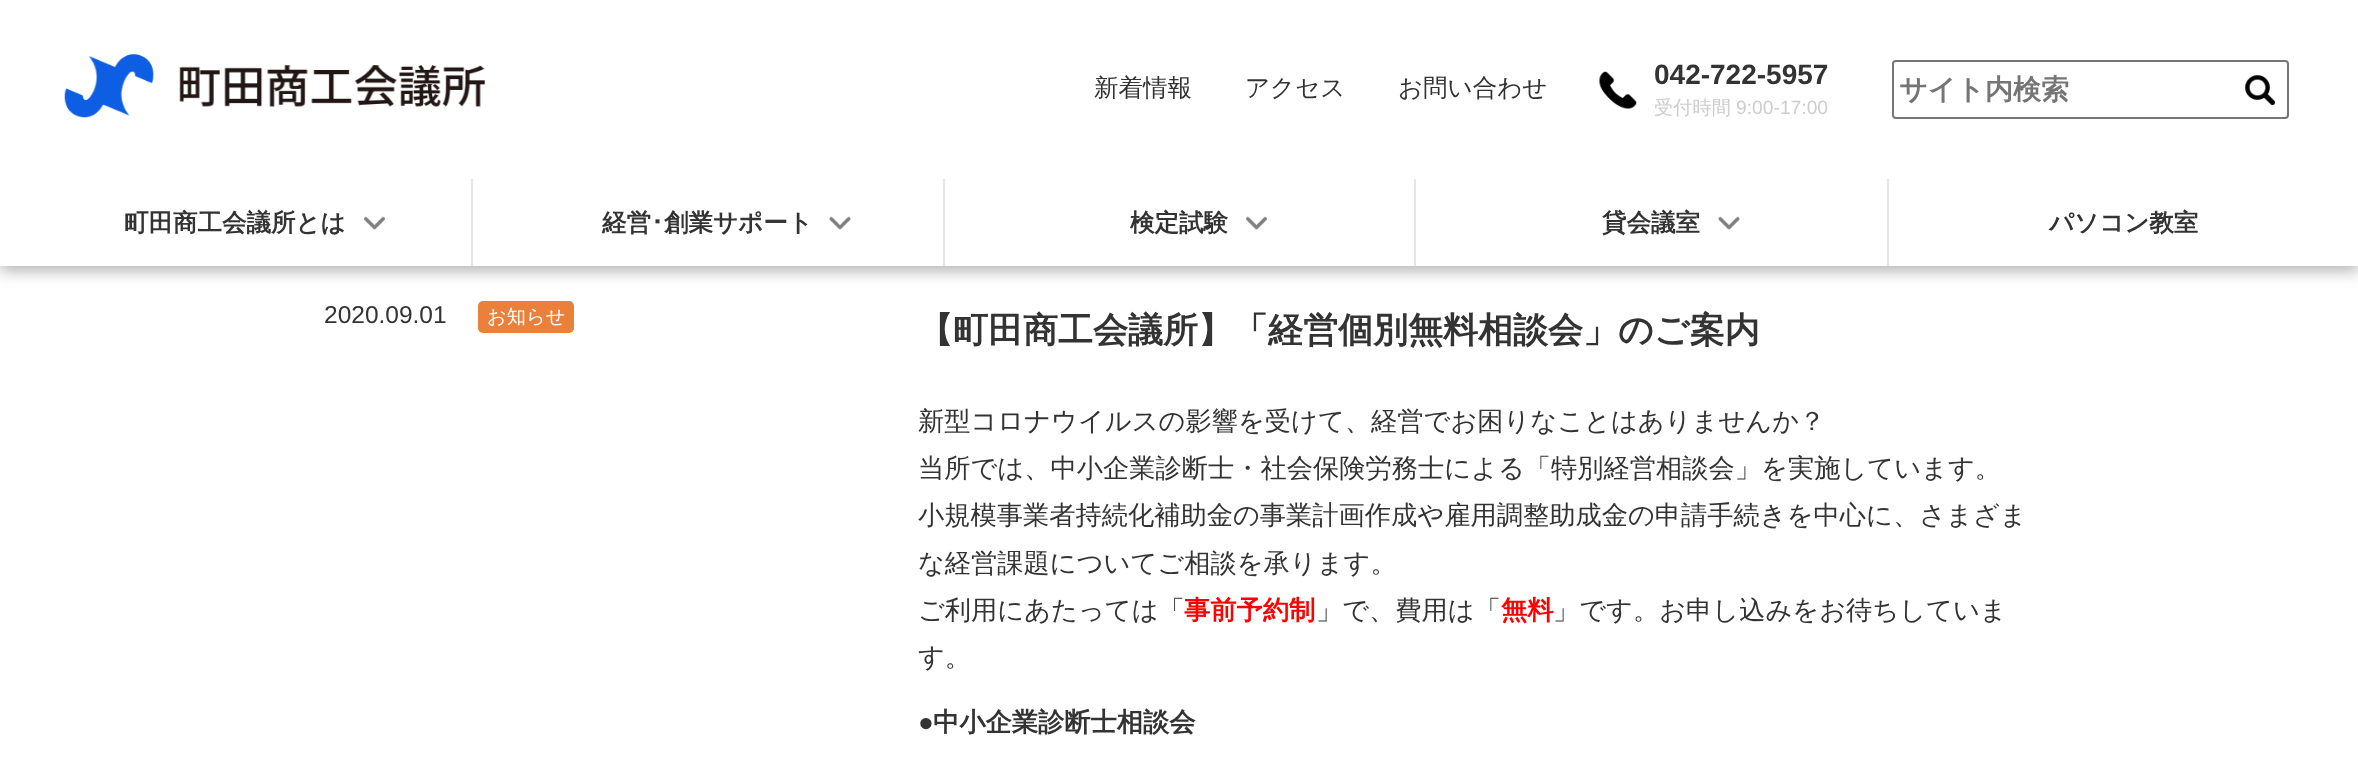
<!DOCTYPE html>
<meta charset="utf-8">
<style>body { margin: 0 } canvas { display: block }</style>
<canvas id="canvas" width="2358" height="763"></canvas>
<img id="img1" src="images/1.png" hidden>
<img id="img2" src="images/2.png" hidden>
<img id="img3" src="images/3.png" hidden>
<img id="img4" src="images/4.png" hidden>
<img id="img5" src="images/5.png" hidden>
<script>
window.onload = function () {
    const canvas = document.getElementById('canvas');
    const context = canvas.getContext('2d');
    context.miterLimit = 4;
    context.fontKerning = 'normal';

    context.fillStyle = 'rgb(255, 255, 255)';
    context.fillRect(0, 0, 2358, 763);
    context.fillStyle = 'rgba(0, 0, 0, 0.3)';
    context.filter = 'blur(8px)';
    context.beginPath();
    context.rect(0, 5, 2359, 266);
    context.fill();
    context.filter = 'none';
    context.fillStyle = 'rgb(255, 255, 255)';
    context.fillRect(0, 0, 2358, 266);
    context.drawImage(document.getElementById('img1'), 64, 54, 421, 64);
    context.drawImage(document.getElementById('img2'), 1599, 71, 38, 38);
    context.beginPath();
    context.roundRect(1893, 61, 395, 57, 3);
    context.strokeStyle = 'rgb(118, 118, 118)';
    context.lineWidth = 2;
    context.stroke();
    context.drawImage(document.getElementById('img3'), 2245, 75, 30, 30);
    context.fillStyle = 'rgb(230, 229, 229)';
    context.fillRect(471, 179, 2, 87);
    context.drawImage(document.getElementById('img4'), 364, 216, 21, 14);
    context.fillRect(943, 179, 2, 87);
    context.drawImage(document.getElementById('img5'), 829, 216, 22, 14);
    context.fillRect(1414, 179, 2, 87);
    context.drawImage(document.getElementById('img4'), 1246, 216, 21, 14);
    context.fillRect(1887, 179, 2, 87);
    context.drawImage(document.getElementById('img5'), 1718, 216, 22, 14);
    context.fillStyle = 'rgb(234, 128, 58)';
    context.beginPath();
    context.roundRect(478, 301, 96, 32, 5);
    context.fill();
    context.font = '500 24.5px WenQuanYi Zen Hei';
    context.fillStyle = 'rgb(51, 51, 51)';
    context.fillText('新着情報', 1094, 96);
    context.fillText('アクセス', 1245, 96);
    context.fillText('お問い合わせ', 1398, 96);
    context.font = 'bold 28px Liberation Sans';
    context.fillText('042-722-5957', 1654, 84);
    context.font = '500 19.25px WenQuanYi Zen Hei';
    context.fillStyle = 'rgb(206, 204, 205)';
    context.fillText('受付時間', 1654, 114);
    context.font = '19.25px Liberation Sans';
    context.fillText('9:00-17:00', 1736, 114);
    context.font = 'bold 28px WenQuanYi Zen Hei';
    context.fillStyle = 'rgb(117, 117, 117)';
    context.fillText('サイト内検索', 1899, 99);
    context.font = 'bold 24.5px WenQuanYi Zen Hei';
    context.fillStyle = 'rgb(51, 51, 51)';
    context.fillText('町田商工会議所とは', 124, 231);
    context.fillText('経営', 602, 231);
    context.font = 'bold 24.5px IPAPGothic';
    context.fillText('･', 651, 231);
    context.font = 'bold 24.5px WenQuanYi Zen Hei';
    context.fillText('創業サポート', 664, 231);
    context.fillText('検定試験', 1130, 231);
    context.fillText('貸会議室', 1602, 231);
    context.fillText('パソコン教室', 2049, 231);
    context.font = '24.5px Liberation Sans';
    context.fillText('2020.09.01', 324, 323);
    context.font = '500 19.25px WenQuanYi Zen Hei';
    context.fillStyle = 'rgb(255, 255, 255)';
    context.fillText('お知らせ', 487, 323);
    context.font = 'bold 35px WenQuanYi Zen Hei';
    context.fillStyle = 'rgb(51, 51, 51)';
    context.fillText('【町田商工会議所】「経営個別無料相談会」のご案内', 918, 342);
    context.font = '500 26.25px WenQuanYi Zen Hei';
    context.fillText('新型コロナウイルスの影響を受けて、経営でお困りなことはありませんか？', 918, 430);
    context.fillText('当所では、中小企業診断士・社会保険労務士による「特別経営相談会」を実施しています。', 918, 477);
    context.fillText('小規模事業者持続化補助金の事業計画作成や雇用調整助成金の申請手続きを中心に、さまざま', 918, 524);
    context.fillText('な経営課題についてご相談を承ります。', 918, 572);
    context.fillText('ご利用にあたっては「', 918, 619);
    context.font = 'bold 26.25px WenQuanYi Zen Hei';
    context.fillStyle = 'rgb(255, 0, 0)';
    context.fillText('事前予約制', 1184, 619);
    context.font = '500 26.25px WenQuanYi Zen Hei';
    context.fillStyle = 'rgb(51, 51, 51)';
    context.fillText('」で、費用は「', 1316, 619);
    context.font = 'bold 26.25px WenQuanYi Zen Hei';
    context.fillStyle = 'rgb(255, 0, 0)';
    context.fillText('無料', 1501, 619);
    context.font = '500 26.25px WenQuanYi Zen Hei';
    context.fillStyle = 'rgb(51, 51, 51)';
    context.fillText('」です。お申し込みをお待ちしていま', 1553, 619);
    context.fillText('す。', 918, 666);
    context.font = 'bold 26.25px Liberation Sans';
    context.fillText('●', 918, 731);
    context.font = 'bold 26.25px WenQuanYi Zen Hei';
    context.fillText('中小企業診断士相談会', 933, 731);
};
</script>
